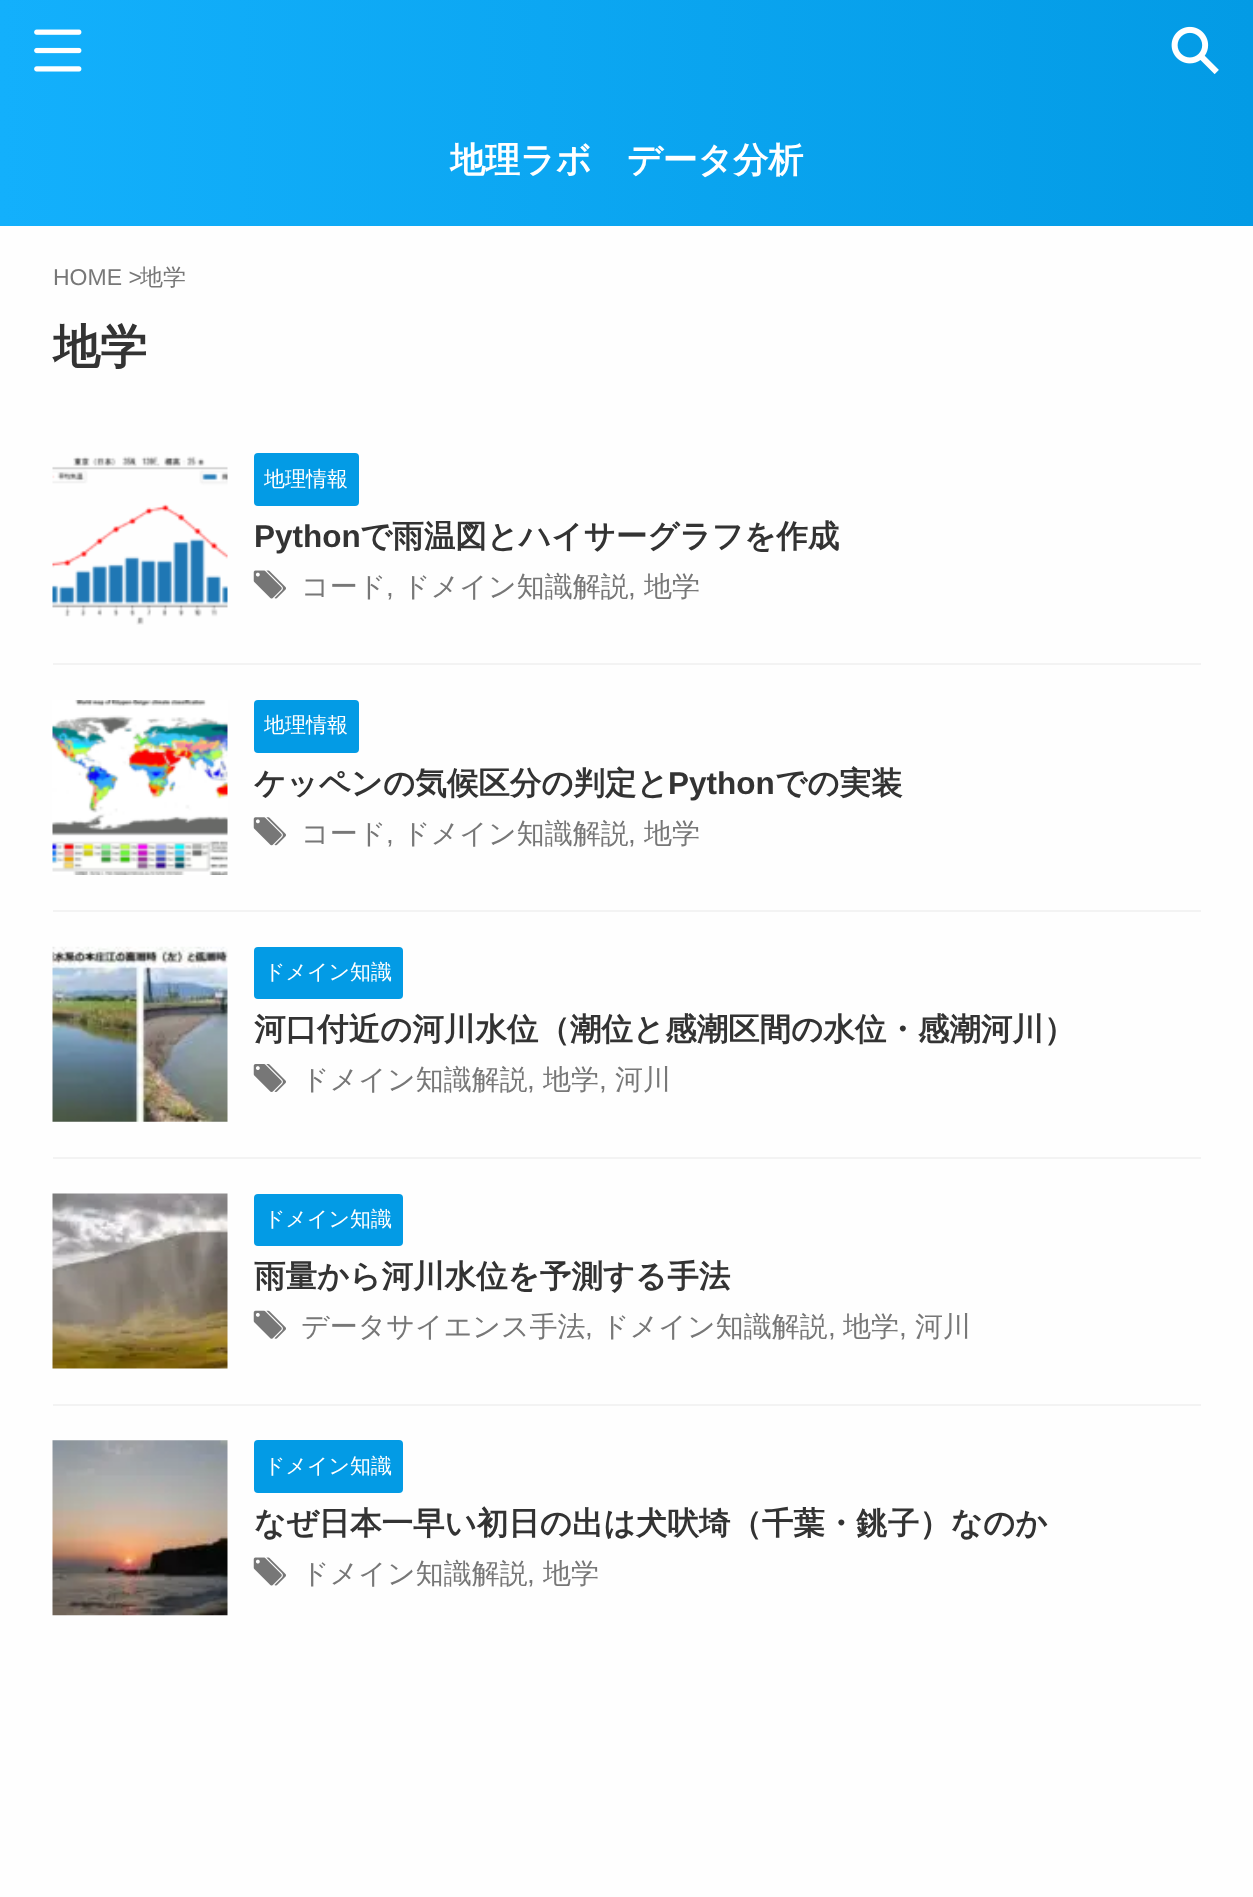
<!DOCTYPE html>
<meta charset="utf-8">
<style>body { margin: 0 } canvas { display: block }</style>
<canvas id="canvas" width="1253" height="1897"></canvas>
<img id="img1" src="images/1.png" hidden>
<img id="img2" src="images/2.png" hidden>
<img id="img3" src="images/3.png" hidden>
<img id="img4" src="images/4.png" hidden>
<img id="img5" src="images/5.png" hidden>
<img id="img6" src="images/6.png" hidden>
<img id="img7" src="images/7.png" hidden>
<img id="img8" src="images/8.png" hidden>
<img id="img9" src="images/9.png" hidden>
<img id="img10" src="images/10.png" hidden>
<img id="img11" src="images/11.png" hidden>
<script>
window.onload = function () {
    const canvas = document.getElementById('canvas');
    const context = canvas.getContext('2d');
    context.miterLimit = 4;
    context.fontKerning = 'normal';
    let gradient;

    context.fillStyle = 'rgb(254, 254, 254)';
    context.fillRect(0, 0, 1253, 1897);
    gradient = context.createLinearGradient(1253, 113, 0, 113);
    gradient.addColorStop(0, 'rgb(3, 155, 229)');
    gradient.addColorStop(1, 'rgb(19, 176, 252)');
    context.fillStyle = gradient;
    context.fillRect(0, 0, 1253, 226);
    context.drawImage(document.getElementById('img1'), 34, 29, 48, 43);
    context.drawImage(document.getElementById('img2'), 1171, 26, 48, 49);
    context.fillStyle = 'rgb(243, 243, 243)';
    context.fillRect(53, 663, 1148, 2);
    context.drawImage(document.getElementById('img3'), 52, 456, 176, 169);
    context.fillStyle = 'rgb(3, 155, 229)';
    context.beginPath();
    context.roundRect(254, 453, 105, 53, 4);
    context.fill();
    context.drawImage(document.getElementById('img4'), 253, 570, 33, 29);
    context.fillStyle = 'rgb(243, 243, 243)';
    context.fillRect(53, 910, 1148, 2);
    context.drawImage(document.getElementById('img5'), 52, 700, 176, 175);
    context.fillStyle = 'rgb(3, 155, 229)';
    context.beginPath();
    context.roundRect(254, 700, 105, 53, 4);
    context.fill();
    context.drawImage(document.getElementById('img6'), 253, 817, 33, 29);
    context.fillStyle = 'rgb(243, 243, 243)';
    context.fillRect(53, 1157, 1148, 2);
    context.drawImage(document.getElementById('img7'), 52, 946, 176, 176);
    context.fillStyle = 'rgb(3, 155, 229)';
    context.beginPath();
    context.roundRect(254, 947, 149, 52, 4);
    context.fill();
    context.drawImage(document.getElementById('img8'), 253, 1064, 33, 28);
    context.fillStyle = 'rgb(243, 243, 243)';
    context.fillRect(53, 1404, 1148, 2);
    context.drawImage(document.getElementById('img9'), 52, 1193, 176, 176);
    context.fillStyle = 'rgb(3, 155, 229)';
    context.beginPath();
    context.roundRect(254, 1194, 149, 52, 4);
    context.fill();
    context.drawImage(document.getElementById('img10'), 253, 1310, 33, 29);
    context.drawImage(document.getElementById('img11'), 52, 1440, 176, 176);
    context.beginPath();
    context.roundRect(254, 1440, 149, 53, 4);
    context.fill();
    context.drawImage(document.getElementById('img4'), 253, 1557, 33, 29);
    context.font = 'bold 35px WenQuanYi Zen Hei';
    context.fillStyle = 'rgb(255, 255, 255)';
    context.fillText('地理ラボ　データ分析', 450, 172);
    context.font = '23px Liberation Sans';
    context.fillStyle = 'rgb(119, 119, 119)';
    context.fillText('HOME >', 53, 285);
    context.font = '500 23px WenQuanYi Zen Hei';
    context.fillText('地学', 140, 285);
    context.font = 'bold 47px WenQuanYi Zen Hei';
    context.fillStyle = 'rgb(51, 51, 51)';
    context.fillText('地学', 53, 363);
    context.font = '500 21px WenQuanYi Zen Hei';
    context.fillStyle = 'rgb(255, 255, 255)';
    context.fillText('地理情報', 264, 486);
    context.font = 'bold 31.5px Liberation Sans';
    context.fillStyle = 'rgb(51, 51, 51)';
    context.fillText('Python', 254, 547);
    context.font = 'bold 31.5px WenQuanYi Zen Hei';
    context.fillText('で雨温図とハイサーグラフを作成', 360, 547);
    context.font = '500 28px WenQuanYi Zen Hei';
    context.fillStyle = 'rgb(119, 119, 119)';
    context.fillText('コード', 301, 596);
    context.font = '28px Liberation Sans';
    context.fillText(',', 386, 596);
    context.font = '500 28px WenQuanYi Zen Hei';
    context.fillText('ドメイン知識解説', 402, 596);
    context.font = '28px Liberation Sans';
    context.fillText(',', 628, 596);
    context.font = '500 28px WenQuanYi Zen Hei';
    context.fillText('地学', 644, 596);
    context.font = '500 21px WenQuanYi Zen Hei';
    context.fillStyle = 'rgb(255, 255, 255)';
    context.fillText('地理情報', 264, 732);
    context.font = 'bold 31.5px WenQuanYi Zen Hei';
    context.fillStyle = 'rgb(51, 51, 51)';
    context.fillText('ケッペンの気候区分の判定と', 254, 794);
    context.font = 'bold 31.5px Liberation Sans';
    context.fillText('Python', 668, 794);
    context.font = 'bold 31.5px WenQuanYi Zen Hei';
    context.fillText('での実装', 775, 794);
    context.font = '500 28px WenQuanYi Zen Hei';
    context.fillStyle = 'rgb(119, 119, 119)';
    context.fillText('コード', 301, 843);
    context.font = '28px Liberation Sans';
    context.fillText(',', 386, 843);
    context.font = '500 28px WenQuanYi Zen Hei';
    context.fillText('ドメイン知識解説', 402, 843);
    context.font = '28px Liberation Sans';
    context.fillText(',', 628, 843);
    context.font = '500 28px WenQuanYi Zen Hei';
    context.fillText('地学', 644, 843);
    context.font = '500 21px WenQuanYi Zen Hei';
    context.fillStyle = 'rgb(255, 255, 255)';
    context.fillText('ドメイン知識', 264, 979);
    context.font = 'bold 31.5px WenQuanYi Zen Hei';
    context.fillStyle = 'rgb(51, 51, 51)';
    context.fillText('河口付近の河川水位（潮位と感潮区間の水位・感潮河川）', 254, 1040);
    context.font = '500 28px WenQuanYi Zen Hei';
    context.fillStyle = 'rgb(119, 119, 119)';
    context.fillText('ドメイン知識解説', 301, 1089);
    context.font = '28px Liberation Sans';
    context.fillText(',', 527, 1089);
    context.font = '500 28px WenQuanYi Zen Hei';
    context.fillText('地学', 543, 1089);
    context.font = '28px Liberation Sans';
    context.fillText(',', 599, 1089);
    context.font = '500 28px WenQuanYi Zen Hei';
    context.fillText('河川', 615, 1089);
    context.font = '500 21px WenQuanYi Zen Hei';
    context.fillStyle = 'rgb(255, 255, 255)';
    context.fillText('ドメイン知識', 264, 1226);
    context.font = 'bold 31.5px WenQuanYi Zen Hei';
    context.fillStyle = 'rgb(51, 51, 51)';
    context.fillText('雨量から河川水位を予測する手法', 254, 1287);
    context.font = '500 28px WenQuanYi Zen Hei';
    context.fillStyle = 'rgb(119, 119, 119)';
    context.fillText('データサイエンス手法', 301, 1336);
    context.font = '28px Liberation Sans';
    context.fillText(',', 585, 1336);
    context.font = '500 28px WenQuanYi Zen Hei';
    context.fillText('ドメイン知識解説', 601, 1336);
    context.font = '28px Liberation Sans';
    context.fillText(',', 828, 1336);
    context.font = '500 28px WenQuanYi Zen Hei';
    context.fillText('地学', 843, 1336);
    context.font = '28px Liberation Sans';
    context.fillText(',', 899, 1336);
    context.font = '500 28px WenQuanYi Zen Hei';
    context.fillText('河川', 915, 1336);
    context.font = '500 21px WenQuanYi Zen Hei';
    context.fillStyle = 'rgb(255, 255, 255)';
    context.fillText('ドメイン知識', 264, 1473);
    context.font = 'bold 31.5px WenQuanYi Zen Hei';
    context.fillStyle = 'rgb(51, 51, 51)';
    context.fillText('なぜ日本一早い初日の出は犬吠埼（千葉・銚子）なのか', 254, 1534);
    context.font = '500 28px WenQuanYi Zen Hei';
    context.fillStyle = 'rgb(119, 119, 119)';
    context.fillText('ドメイン知識解説', 301, 1583);
    context.font = '28px Liberation Sans';
    context.fillText(',', 527, 1583);
    context.font = '500 28px WenQuanYi Zen Hei';
    context.fillText('地学', 543, 1583);
};
</script>
